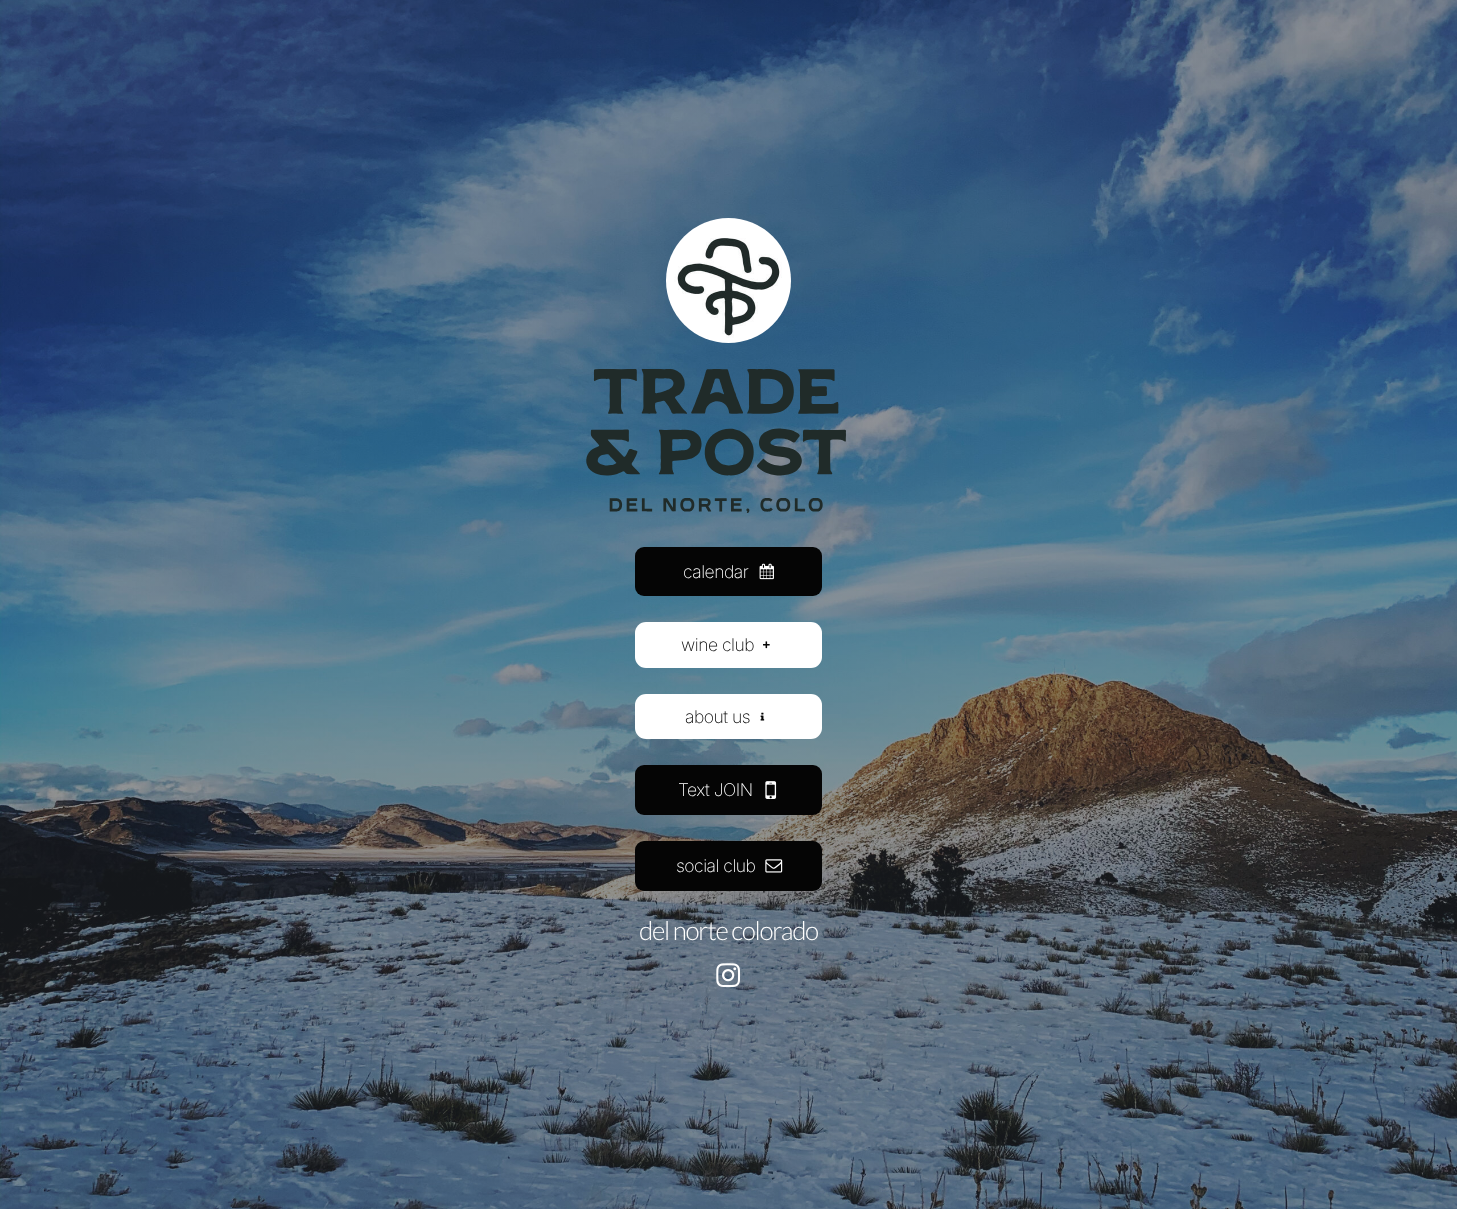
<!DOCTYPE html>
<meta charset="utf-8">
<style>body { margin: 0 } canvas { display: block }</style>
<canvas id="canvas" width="1457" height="1209"></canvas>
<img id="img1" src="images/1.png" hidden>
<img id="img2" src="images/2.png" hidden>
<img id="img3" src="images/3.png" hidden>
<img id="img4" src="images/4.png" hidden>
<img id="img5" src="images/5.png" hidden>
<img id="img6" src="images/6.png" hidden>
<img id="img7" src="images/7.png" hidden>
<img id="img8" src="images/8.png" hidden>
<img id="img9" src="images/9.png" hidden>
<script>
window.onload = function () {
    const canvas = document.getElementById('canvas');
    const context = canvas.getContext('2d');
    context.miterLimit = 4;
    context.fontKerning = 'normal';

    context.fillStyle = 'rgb(255, 255, 255)';
    context.fillRect(0, 0, 1457, 1209);
    context.drawImage(document.getElementById('img1'), 0, 0, 1457, 1209);
    context.drawImage(document.getElementById('img2'), 666, 218, 125, 125);
    context.drawImage(document.getElementById('img3'), 586, 369, 260, 144);
    context.fillStyle = 'rgb(5, 5, 5)';
    context.beginPath();
    context.roundRect(635, 547, 187, 49, 9);
    context.fill();
    context.drawImage(document.getElementById('img4'), 759, 563, 15, 17);
    context.fillStyle = 'rgb(255, 255, 255)';
    context.beginPath();
    context.roundRect(635, 622, 187, 46, 11);
    context.fill();
    context.drawImage(document.getElementById('img5'), 763, 641, 7, 8);
    context.beginPath();
    context.roundRect(635, 694, 187, 45, 11);
    context.fill();
    context.drawImage(document.getElementById('img6'), 760, 712, 5, 9);
    context.fillStyle = 'rgb(5, 5, 5)';
    context.beginPath();
    context.roundRect(635, 765, 187, 50, 9);
    context.fill();
    context.drawImage(document.getElementById('img7'), 765, 781, 12, 18);
    context.beginPath();
    context.roundRect(635, 841, 187, 50, 9);
    context.fill();
    context.drawImage(document.getElementById('img8'), 765, 859, 18, 14);
    context.drawImage(document.getElementById('img9'), 716, 963, 25, 25);
    context.letterSpacing = '-0.5px';
    context.font = '200 17.5px Inter';
    context.fillStyle = 'rgb(255, 255, 255)';
    context.fillText('calendar', 683, 578);
    context.fillStyle = 'rgb(5, 5, 5)';
    context.fillText('wine club', 681, 651);
    context.fillText('about us', 685, 723);
    context.fillStyle = 'rgb(255, 255, 255)';
    context.fillText('Text JOIN', 678, 796);
    context.fillText('social club', 676, 872);
    context.letterSpacing = '-1.25px';
    context.font = '300 26px Lato';
    context.fillText('del norte colorado', 639, 940);
};
</script>
